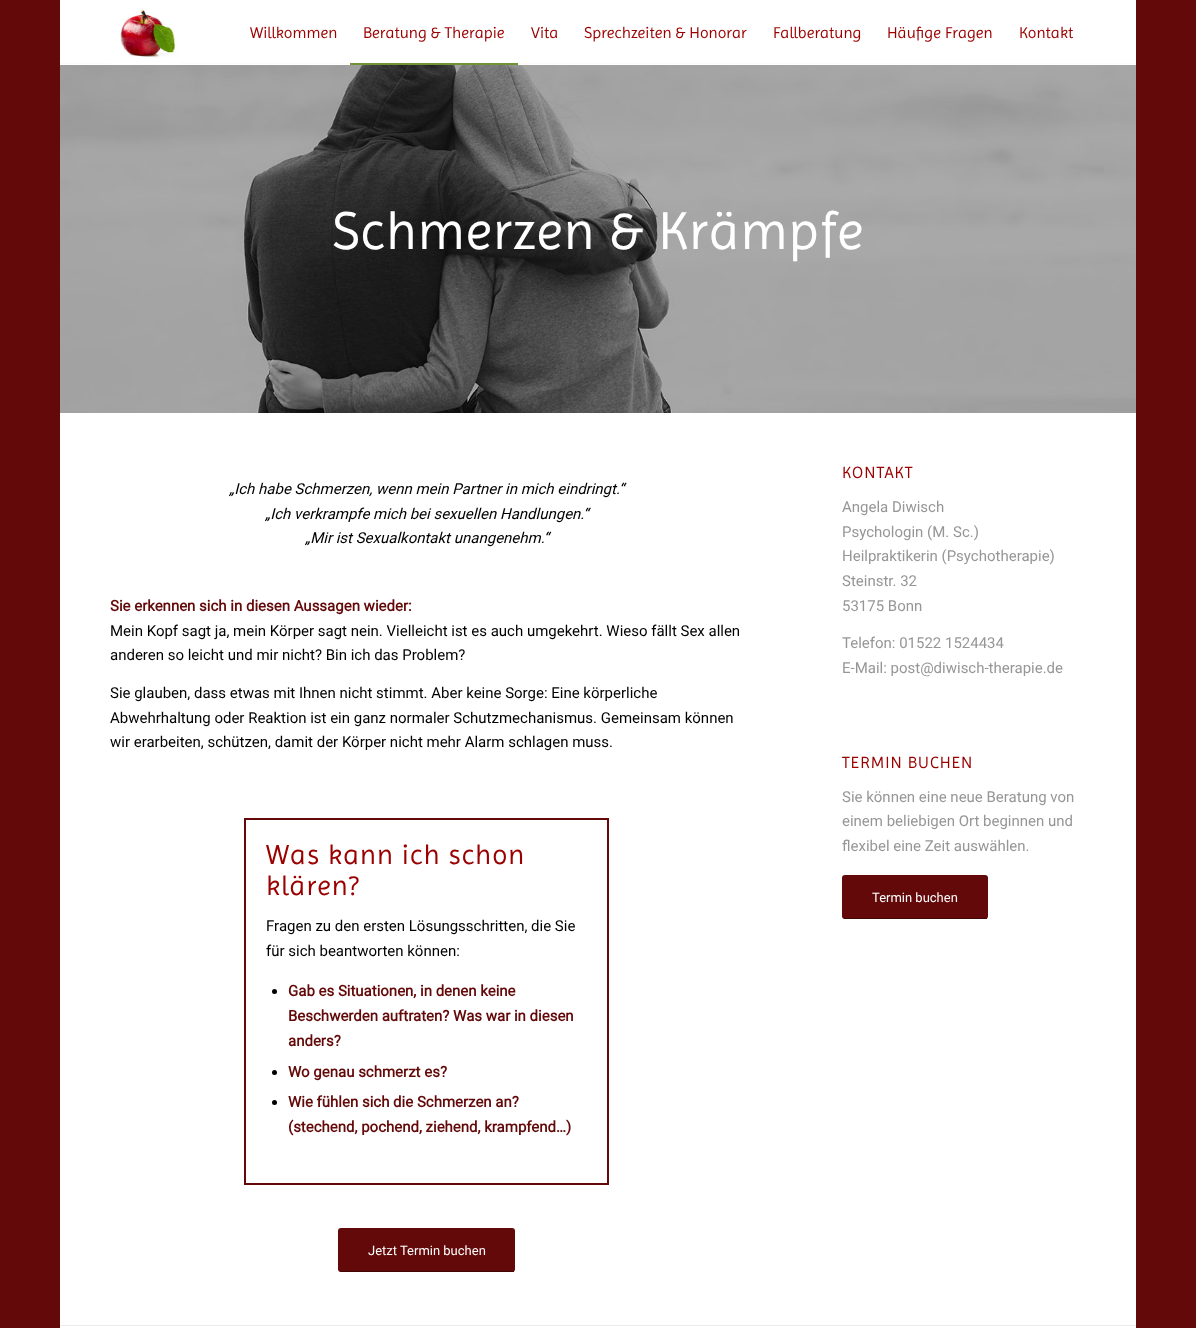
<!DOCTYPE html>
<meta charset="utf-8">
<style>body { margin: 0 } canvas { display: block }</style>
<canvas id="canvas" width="1196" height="1328"></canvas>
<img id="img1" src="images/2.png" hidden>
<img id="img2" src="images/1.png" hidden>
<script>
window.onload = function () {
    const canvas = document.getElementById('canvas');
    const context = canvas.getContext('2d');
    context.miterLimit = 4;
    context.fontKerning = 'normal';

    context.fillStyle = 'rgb(99, 9, 9)';
    context.fillRect(0, 0, 1196, 1328);
    context.fillStyle = 'rgb(255, 255, 255)';
    context.fillRect(60, 0, 1076, 1328);
    context.drawImage(document.getElementById('img1'), 60, 63, 1076, 350);
    context.fillRect(60, 64, 1076, 1);
    context.fillStyle = 'rgba(255, 255, 255, 0.95)';
    context.fillRect(60, 63, 1076, 1);
    context.drawImage(document.getElementById('img2'), 110, 9, 72, 55);
    context.fillStyle = 'rgb(113, 148, 48)';
    context.fillRect(350, 63, 168, 2);
    context.strokeStyle = 'rgb(99, 9, 9)';
    context.lineWidth = 2;
    context.strokeRect(245, 819, 363, 365);
    context.fillStyle = 'rgb(0, 0, 0)';
    context.beginPath();
    context.arc(274.5, 991.5, 2.5, 0, 2 * Math.PI);
    context.fill();
    context.beginPath();
    context.arc(274.5, 1072.5, 2.5, 0, 2 * Math.PI);
    context.fill();
    context.beginPath();
    context.arc(274.5, 1102.5, 2.5, 0, 2 * Math.PI);
    context.fill();
    context.fillStyle = 'rgb(99, 9, 9)';
    context.beginPath();
    context.roundRect(338, 1228, 177, 44, 3);
    context.fill();
    context.fillStyle = 'rgb(65, 7, 7)';
    context.fillRect(340, 1271, 174, 1);
    context.fillStyle = 'rgb(99, 9, 9)';
    context.beginPath();
    context.roundRect(842, 875, 146, 44, 3);
    context.fill();
    context.fillStyle = 'rgb(65, 7, 7)';
    context.fillRect(844, 918, 143, 1);
    context.fillStyle = 'rgb(235, 235, 235)';
    context.fillRect(60, 1325, 1076, 1);
    context.font = '16px Imprima';
    context.fillStyle = 'rgb(155, 0, 0)';
    context.fillText('Willkommen', 250, 38);
    context.fillText('Beratung & Therapie', 363, 38);
    context.fillText('Vita', 531, 38);
    context.fillText('Sprechzeiten & Honorar', 584, 38);
    context.fillText('Fallberatung', 773, 38);
    context.fillText('Häufige Fragen', 887, 38);
    context.fillText('Kontakt', 1019, 38);
    context.letterSpacing = '1px';
    context.font = '54px Imprima';
    context.fillStyle = 'rgb(255, 255, 255)';
    context.fillText('Schmerzen & Krämpfe', 332, 249);
    context.letterSpacing = '0px';
    context.font = 'italic 15px Roboto';
    context.fillStyle = 'rgb(0, 0, 0)';
    context.fillText('„Ich habe Schmerzen, wenn mein Partner in mich eindringt.“', 229, 494);
    context.fillText('„Ich verkrampfe mich bei sexuellen Handlungen.“', 265, 519);
    context.fillText('„Mir ist Sexualkontakt unangenehm.“', 305, 543);
    context.font = 'bold 15px Roboto';
    context.fillStyle = 'rgb(99, 9, 9)';
    context.fillText('Sie erkennen sich in diesen Aussagen wieder:', 110, 611);
    context.font = '15px Roboto';
    context.fillStyle = 'rgb(0, 0, 0)';
    context.fillText('Mein Kopf sagt ja, mein Körper sagt nein. Vielleicht ist es auch umgekehrt. Wieso fällt Sex allen', 110, 636);
    context.fillText('anderen so leicht und mir nicht? Bin ich das Problem?', 110, 660);
    context.fillText('Sie glauben, dass etwas mit Ihnen nicht stimmt. Aber keine Sorge: Eine körperliche', 110, 698);
    context.fillText('Abwehrhaltung oder Reaktion ist ein ganz normaler Schutzmechanismus. Gemeinsam können', 110, 723);
    context.fillText('wir erarbeiten, schützen, damit der Körper nicht mehr Alarm schlagen muss.', 110, 747);
    context.letterSpacing = '1px';
    context.font = '28px Imprima';
    context.fillStyle = 'rgb(155, 0, 0)';
    context.fillText('Was kann ich schon', 266, 864);
    context.fillText('klären?', 266, 895);
    context.letterSpacing = '0px';
    context.font = '15px Roboto';
    context.fillStyle = 'rgb(0, 0, 0)';
    context.fillText('Fragen zu den ersten Lösungsschritten, die Sie', 266, 931);
    context.fillText('für sich beantworten können:', 266, 956);
    context.font = 'bold 15px Roboto';
    context.fillStyle = 'rgb(99, 9, 9)';
    context.fillText('Gab es Situationen, in denen keine', 288, 996);
    context.fillText('Beschwerden auftraten? Was war in diesen', 288, 1021);
    context.fillText('anders?', 288, 1046);
    context.fillText('Wo genau schmerzt es?', 288, 1077);
    context.fillText('Wie fühlen sich die Schmerzen an?', 288, 1107);
    context.fillText('(stechend, pochend, ziehend, krampfend…)', 288, 1132);
    context.font = '13px Roboto';
    context.fillStyle = 'rgb(255, 255, 255)';
    context.fillText('Jetzt Termin buchen', 368, 1255);
    context.letterSpacing = '1px';
    context.font = '16.5px Imprima';
    context.fillStyle = 'rgb(155, 0, 0)';
    context.fillText('KONTAKT', 842, 478);
    context.letterSpacing = '0px';
    context.font = '15px Roboto';
    context.fillStyle = 'rgb(150, 150, 150)';
    context.fillText('Angela Diwisch', 842, 512);
    context.fillText('Psychologin (M. Sc.)', 842, 537);
    context.fillText('Heilpraktikerin (Psychotherapie)', 842, 561);
    context.fillText('Steinstr. 32', 842, 586);
    context.fillText('53175 Bonn', 842, 611);
    context.fillText('Telefon: 01522 1524434', 842, 648);
    context.fillText('E-Mail: post@diwisch-therapie.de', 842, 673);
    context.letterSpacing = '1px';
    context.font = '16.5px Imprima';
    context.fillStyle = 'rgb(155, 0, 0)';
    context.fillText('TERMIN BUCHEN', 842, 768);
    context.letterSpacing = '0px';
    context.font = '15px Roboto';
    context.fillStyle = 'rgb(150, 150, 150)';
    context.fillText('Sie können eine neue Beratung von', 842, 802);
    context.fillText('einem beliebigen Ort beginnen und', 842, 826);
    context.fillText('flexibel eine Zeit auswählen.', 842, 851);
    context.font = '13px Roboto';
    context.fillStyle = 'rgb(255, 255, 255)';
    context.fillText('Termin buchen', 872, 902);
};
</script>
